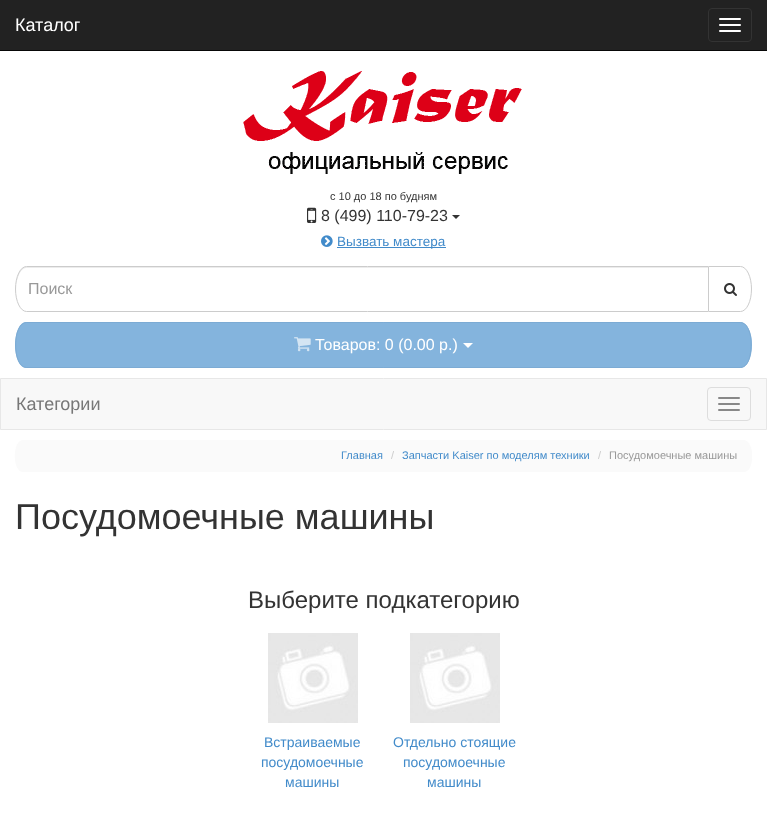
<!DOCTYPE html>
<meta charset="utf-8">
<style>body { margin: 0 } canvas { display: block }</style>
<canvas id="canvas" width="767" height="830"></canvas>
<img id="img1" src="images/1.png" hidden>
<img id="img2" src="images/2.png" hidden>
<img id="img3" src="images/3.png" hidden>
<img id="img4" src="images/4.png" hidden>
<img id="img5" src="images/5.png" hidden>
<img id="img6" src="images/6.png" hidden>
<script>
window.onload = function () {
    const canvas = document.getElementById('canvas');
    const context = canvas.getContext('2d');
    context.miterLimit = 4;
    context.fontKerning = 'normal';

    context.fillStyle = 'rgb(255, 255, 255)';
    context.fillRect(0, 0, 767, 830);
    context.fillStyle = 'rgb(34, 34, 34)';
    context.fillRect(0, 0, 767, 50);
    context.fillStyle = 'rgb(8, 8, 8)';
    context.fillRect(0, 50, 767, 1);
    context.beginPath();
    context.roundRect(708.5, 8.5, 43, 33, 3.5);
    context.strokeStyle = 'rgb(51, 51, 51)';
    context.stroke();
    context.fillStyle = 'rgb(255, 255, 255)';
    context.beginPath();
    context.roundRect(719, 18, 22, 2, 1);
    context.fill();
    context.beginPath();
    context.roundRect(719, 24, 22, 2, 1);
    context.fill();
    context.beginPath();
    context.roundRect(719, 30, 22, 2, 1);
    context.fill();
    context.drawImage(document.getElementById('img1'), 243, 71, 279, 103);
    context.drawImage(document.getElementById('img2'), 307, 207, 10, 16);
    context.fillStyle = 'rgb(51, 51, 51)';
    context.beginPath();
    context.moveTo(452, 215);
    context.lineTo(460, 215);
    context.lineTo(456, 219);
    context.closePath();
    context.fill();
    context.drawImage(document.getElementById('img3'), 321, 235, 12, 12);
    context.fillStyle = 'rgb(66, 139, 202)';
    context.fillRect(337, 247, 109, 1);
    context.beginPath();
    context.moveTo(708.5, 266.5);
    context.lineTo(740.5, 266.5);
    context.bezierCurveTo(746.5, 266.5, 751.5, 276.5, 751.5, 289);
    context.bezierCurveTo(751.5, 301.5, 746.5, 311.5, 740.5, 311.5);
    context.lineTo(708.5, 311.5);
    context.closePath();
    context.strokeStyle = 'rgb(204, 204, 204)';
    context.stroke();
    context.fillStyle = 'rgb(255, 255, 255)';
    context.beginPath();
    context.moveTo(26, 266);
    context.lineTo(709, 266);
    context.lineTo(709, 312);
    context.lineTo(26, 312);
    context.bezierCurveTo(20, 312, 15, 302, 15, 289);
    context.bezierCurveTo(15, 276, 20, 266, 26, 266);
    context.closePath();
    context.fill();
    context.fillStyle = 'rgb(236, 236, 236)';
    context.beginPath();
    context.moveTo(26, 268);
    context.lineTo(708, 268);
    context.lineTo(708, 267);
    context.lineTo(26, 267);
    context.lineTo(24, 267);
    context.bezierCurveTo(17, 270, 16, 283, 16, 290);
    context.bezierCurveTo(16, 278, 21, 268, 26, 268);
    context.closePath();
    context.fill();
    context.beginPath();
    context.moveTo(26.5, 266.5);
    context.lineTo(708.5, 266.5);
    context.lineTo(708.5, 311.5);
    context.lineTo(26.5, 311.5);
    context.bezierCurveTo(20.5, 311.5, 15.5, 301.5, 15.5, 289);
    context.bezierCurveTo(15.5, 276.5, 20.5, 266.5, 26.5, 266.5);
    context.closePath();
    context.stroke();
    context.drawImage(document.getElementById('img4'), 724, 283, 13, 13);
    context.fillStyle = 'rgb(132, 180, 221)';
    context.beginPath();
    context.moveTo(26, 322);
    context.lineTo(740, 322);
    context.bezierCurveTo(747, 322, 752, 332, 752, 345);
    context.bezierCurveTo(752, 358, 747, 368, 740, 368);
    context.lineTo(26, 368);
    context.bezierCurveTo(20, 368, 15, 358, 15, 345);
    context.bezierCurveTo(15, 332, 20, 322, 26, 322);
    context.closePath();
    context.fill();
    context.beginPath();
    context.moveTo(26.5, 322.5);
    context.lineTo(740.5, 322.5);
    context.bezierCurveTo(747, 322.5, 749.5, 331.5, 750.5, 336);
    context.bezierCurveTo(752, 343.5, 751.5, 367.5, 740.5, 367.5);
    context.lineTo(26.5, 367.5);
    context.bezierCurveTo(12, 367.5, 12, 322.5, 26.5, 322.5);
    context.closePath();
    context.strokeStyle = 'rgb(124, 171, 212)';
    context.stroke();
    context.drawImage(document.getElementById('img5'), 294, 337, 17, 15);
    context.fillStyle = 'rgb(255, 255, 255)';
    context.beginPath();
    context.moveTo(463, 343);
    context.lineTo(473, 343);
    context.lineTo(468, 348);
    context.closePath();
    context.fill();
    context.fillStyle = 'rgb(248, 248, 248)';
    context.beginPath();
    context.rect(0.5, 378.5, 766, 51);
    context.fill();
    context.strokeStyle = 'rgb(231, 231, 231)';
    context.stroke();
    context.beginPath();
    context.roundRect(707.5, 387.5, 43, 33, 3.5);
    context.strokeStyle = 'rgb(221, 221, 221)';
    context.stroke();
    context.fillStyle = 'rgb(136, 136, 136)';
    context.beginPath();
    context.roundRect(718, 397, 22, 2, 1);
    context.fill();
    context.beginPath();
    context.roundRect(718, 403, 22, 2, 1);
    context.fill();
    context.beginPath();
    context.roundRect(718, 409, 22, 2, 1);
    context.fill();
    context.fillStyle = 'rgb(250, 250, 250)';
    context.beginPath();
    context.moveTo(23, 440);
    context.lineTo(744, 440);
    context.lineTo(747, 441);
    context.bezierCurveTo(753, 446, 753, 458, 751, 465);
    context.bezierCurveTo(750, 468, 748, 472, 744, 472);
    context.lineTo(23, 472);
    context.bezierCurveTo(12, 472, 12, 440, 23, 440);
    context.closePath();
    context.fill();
    context.drawImage(document.getElementById('img6'), 268, 633, 90, 90);
    context.drawImage(document.getElementById('img6'), 410, 633, 90, 90);
    context.font = '18px Liberation Sans';
    context.fillStyle = 'rgb(255, 255, 255)';
    context.fillText('Каталог', 15, 31);
    context.font = '11px Liberation Sans';
    context.fillStyle = 'rgb(51, 51, 51)';
    context.fillText('с 10 до 18 по будням', 330, 200);
    context.font = '16px Liberation Sans';
    context.fillText('8 (499) 110-79-23', 321, 221);
    context.font = '13.5px Liberation Sans';
    context.fillStyle = 'rgb(66, 139, 202)';
    context.fillText('Вызвать мастера', 337, 246);
    context.font = '16px Liberation Sans';
    context.fillStyle = 'rgb(153, 153, 153)';
    context.fillText('Поиск', 28, 294);
    context.fillStyle = 'rgb(255, 255, 255)';
    context.fillText('Товаров: 0 (0.00 р.)', 315, 350);
    context.font = '18px Liberation Sans';
    context.fillStyle = 'rgb(119, 119, 119)';
    context.fillText('Категории', 16, 410);
    context.font = '11px Liberation Sans';
    context.fillStyle = 'rgb(66, 139, 202)';
    context.fillText('Главная', 341, 459);
    context.fillStyle = 'rgb(204, 204, 204)';
    context.fillText('/', 391, 459);
    context.fillStyle = 'rgb(66, 139, 202)';
    context.fillText('Запчасти Kaiser по моделям техники', 402, 459);
    context.fillStyle = 'rgb(204, 204, 204)';
    context.fillText('/', 598, 459);
    context.fillStyle = 'rgb(153, 153, 153)';
    context.fillText('Посудомоечные машины', 609, 459);
    context.font = '36px Liberation Sans';
    context.fillStyle = 'rgb(51, 51, 51)';
    context.fillText('Посудомоечные машины', 15, 529);
    context.font = '24px Liberation Sans';
    context.fillText('Выберите подкатегорию', 248, 608);
    context.font = '14px Liberation Sans';
    context.fillStyle = 'rgb(66, 139, 202)';
    context.fillText('Встраиваемые', 264, 747);
    context.fillText('посудомоечные', 261, 767);
    context.fillText('машины', 285, 787);
    context.fillText('Отдельно стоящие', 393, 747);
    context.fillText('посудомоечные', 403, 767);
    context.fillText('машины', 427, 787);
};
</script>
